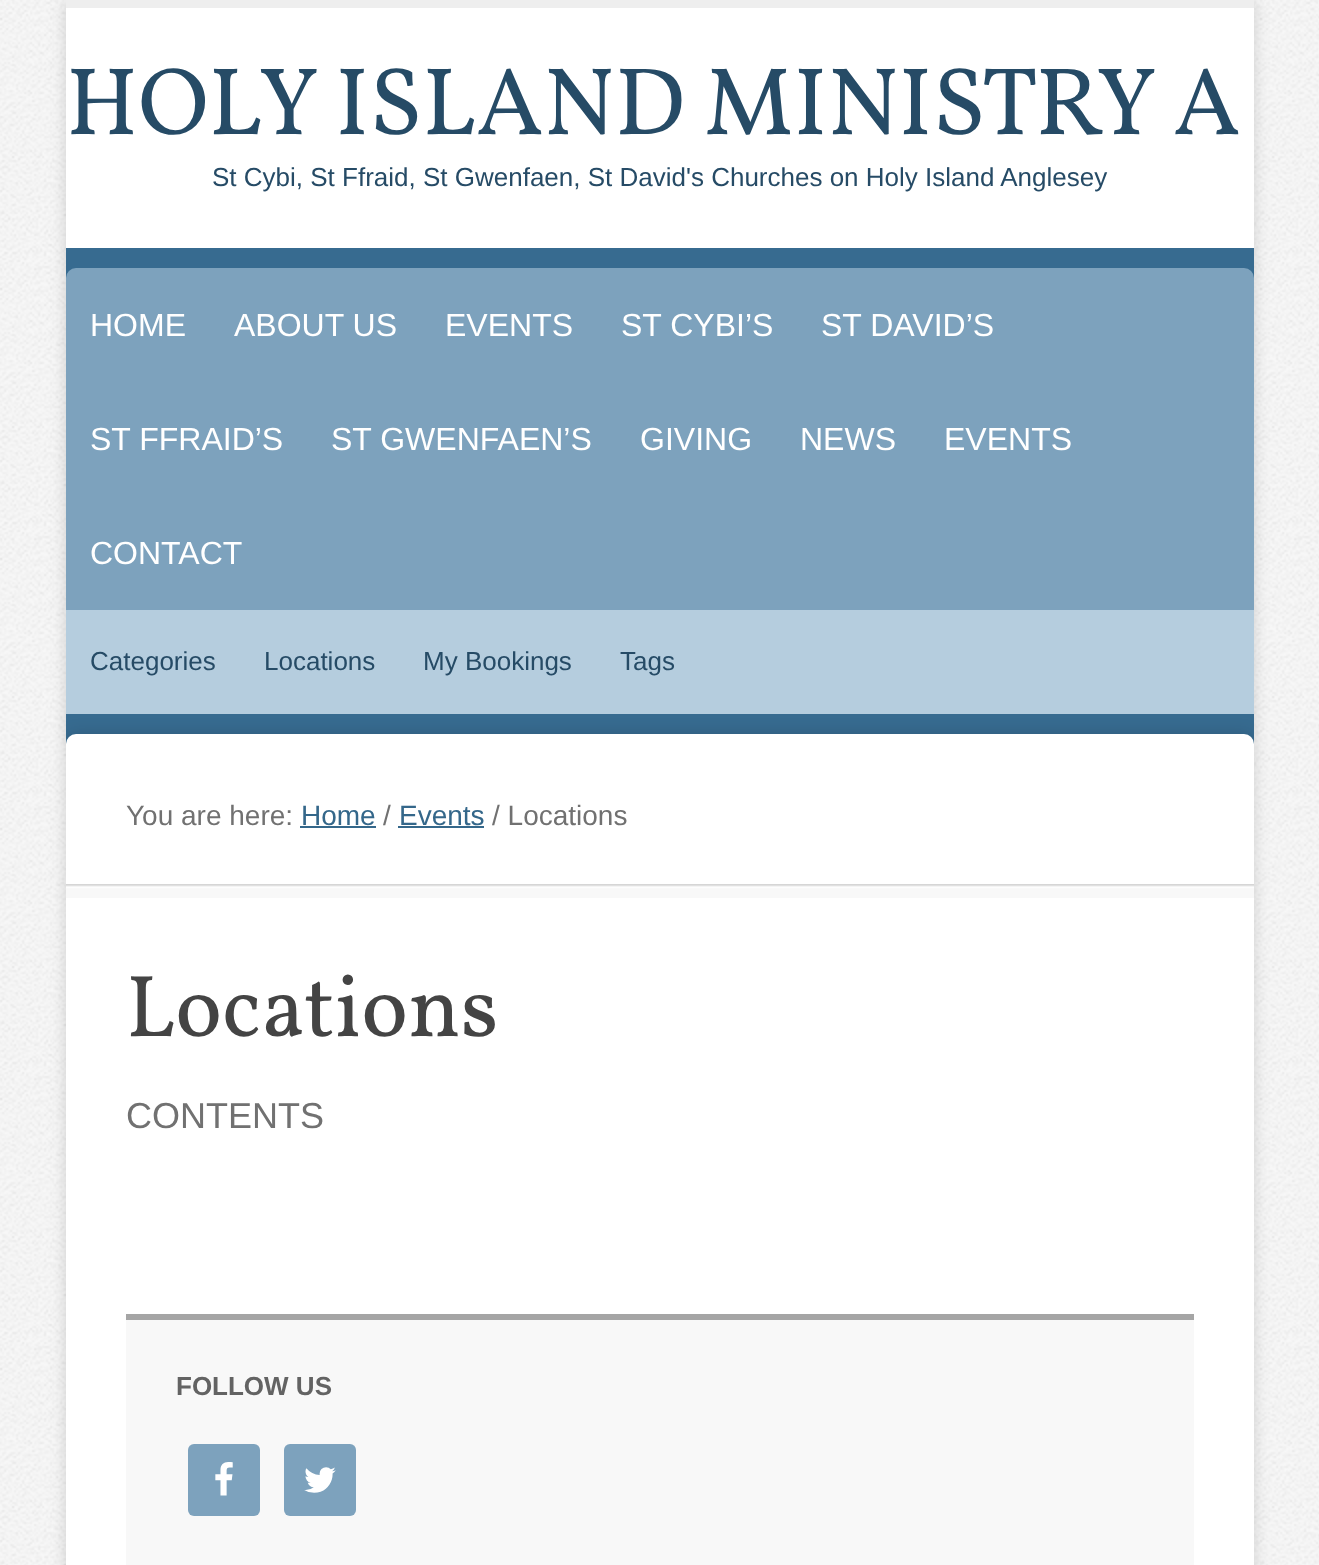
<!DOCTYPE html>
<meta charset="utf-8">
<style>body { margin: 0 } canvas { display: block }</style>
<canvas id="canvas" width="1319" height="1565"></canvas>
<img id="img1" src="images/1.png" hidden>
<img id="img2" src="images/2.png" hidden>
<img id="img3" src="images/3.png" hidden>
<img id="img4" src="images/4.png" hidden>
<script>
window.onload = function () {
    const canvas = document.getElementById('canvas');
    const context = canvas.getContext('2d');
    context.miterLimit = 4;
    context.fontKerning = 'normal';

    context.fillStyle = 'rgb(255, 255, 255)';
    context.fillRect(0, 0, 1319, 1565);
    context.drawImage(document.getElementById('img1'), 0, 0, 1319, 1565);
    context.fillStyle = 'rgba(0, 0, 0, 0.15)';
    context.filter = 'blur(8px)';
    context.beginPath();
    context.rect(66, 0, 1188, 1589);
    context.fill();
    context.filter = 'none';
    context.fillStyle = 'rgb(255, 255, 255)';
    context.fillRect(66, 8, 1188, 240);
    context.fillStyle = 'rgb(238, 238, 238)';
    context.fillRect(66, 0, 1188, 8);
    context.fillStyle = 'rgb(55, 107, 144)';
    context.fillRect(66, 248, 1188, 496);
    context.fillStyle = 'rgb(125, 162, 189)';
    context.beginPath();
    context.roundRect(66, 268, 1188, 342, [10, 10, 0, 0]);
    context.fill();
    context.fillStyle = 'rgb(181, 205, 222)';
    context.fillRect(66, 610, 1188, 104);
    context.save();
    context.beginPath();
    context.rect(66, 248, 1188, 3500);
    context.clip();
    context.fillStyle = 'rgba(0, 0, 0, 0.15)';
    context.filter = 'blur(8px)';
    context.beginPath();
    context.roundRect(66, 734, 1188, 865, 10);
    context.fill();
    context.filter = 'none';
    context.restore();
    context.fillStyle = 'rgb(255, 255, 255)';
    context.beginPath();
    context.roundRect(66, 734, 1188, 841, 10);
    context.fill();
    context.drawImage(document.getElementById('img2'), 66, 884, 1188, 14);
    context.fillStyle = 'rgb(52, 103, 138)';
    context.fillRect(300, 826, 76, 2);
    context.fillRect(398, 826, 86, 2);
    context.fillStyle = 'rgb(248, 248, 248)';
    context.fillRect(126, 1320, 1068, 245);
    context.fillStyle = 'rgb(165, 165, 165)';
    context.fillRect(126, 1314, 1068, 6);
    context.fillStyle = 'rgb(125, 162, 189)';
    context.beginPath();
    context.roundRect(188, 1444, 72, 72, 6);
    context.fill();
    context.drawImage(document.getElementById('img3'), 215, 1462, 18, 34);
    context.beginPath();
    context.roundRect(284, 1444, 72, 72, 6);
    context.fill();
    context.drawImage(document.getElementById('img4'), 304, 1467, 32, 26);
    context.font = '96px Vollkorn';
    context.fillStyle = 'rgb(38, 75, 102)';
    context.fillText('HOLY ISLAND MINISTRY A', 66, 134);
    context.font = '26px Liberation Sans';
    context.fillText('St Cybi, St Ffraid, St Gwenfaen, St David\'s Churches on Holy Island Anglesey', 212, 186);
    context.font = '32px Liberation Sans';
    context.fillStyle = 'rgb(255, 255, 255)';
    context.fillText('HOME', 90, 336);
    context.fillText('ABOUT US', 234, 336);
    context.fillText('EVENTS', 445, 336);
    context.fillText('ST CYBI’S', 621, 336);
    context.fillText('ST DAVID’S', 821, 336);
    context.fillText('ST FFRAID’S', 90, 450);
    context.fillText('ST GWENFAEN’S', 331, 450);
    context.fillText('GIVING', 640, 450);
    context.fillText('NEWS', 800, 450);
    context.fillText('EVENTS', 944, 450);
    context.fillText('CONTACT', 90, 564);
    context.font = '26px Liberation Sans';
    context.fillStyle = 'rgb(38, 75, 102)';
    context.fillText('Categories', 90, 670);
    context.fillText('Locations', 264, 670);
    context.fillText('My Bookings', 423, 670);
    context.fillText('Tags', 620, 670);
    context.font = '28px Liberation Sans';
    context.fillStyle = 'rgb(113, 113, 113)';
    context.fillText('You are here:', 126, 825);
    context.fillStyle = 'rgb(52, 103, 138)';
    context.fillText('Home', 301, 825);
    context.fillStyle = 'rgb(113, 113, 113)';
    context.fillText('/', 383, 825);
    context.fillStyle = 'rgb(52, 103, 138)';
    context.fillText('Events', 399, 825);
    context.fillStyle = 'rgb(113, 113, 113)';
    context.fillText('/ Locations', 492, 825);
    context.font = '88px Vollkorn';
    context.fillStyle = 'rgb(68, 68, 68)';
    context.fillText('Locations', 126, 1036);
    context.font = '36px Liberation Sans';
    context.fillStyle = 'rgb(113, 113, 113)';
    context.fillText('CONTENTS', 126, 1128);
    context.font = 'bold 26px Liberation Sans';
    context.fillStyle = 'rgb(99, 99, 99)';
    context.fillText('FOLLOW US', 176, 1395);
};
</script>
